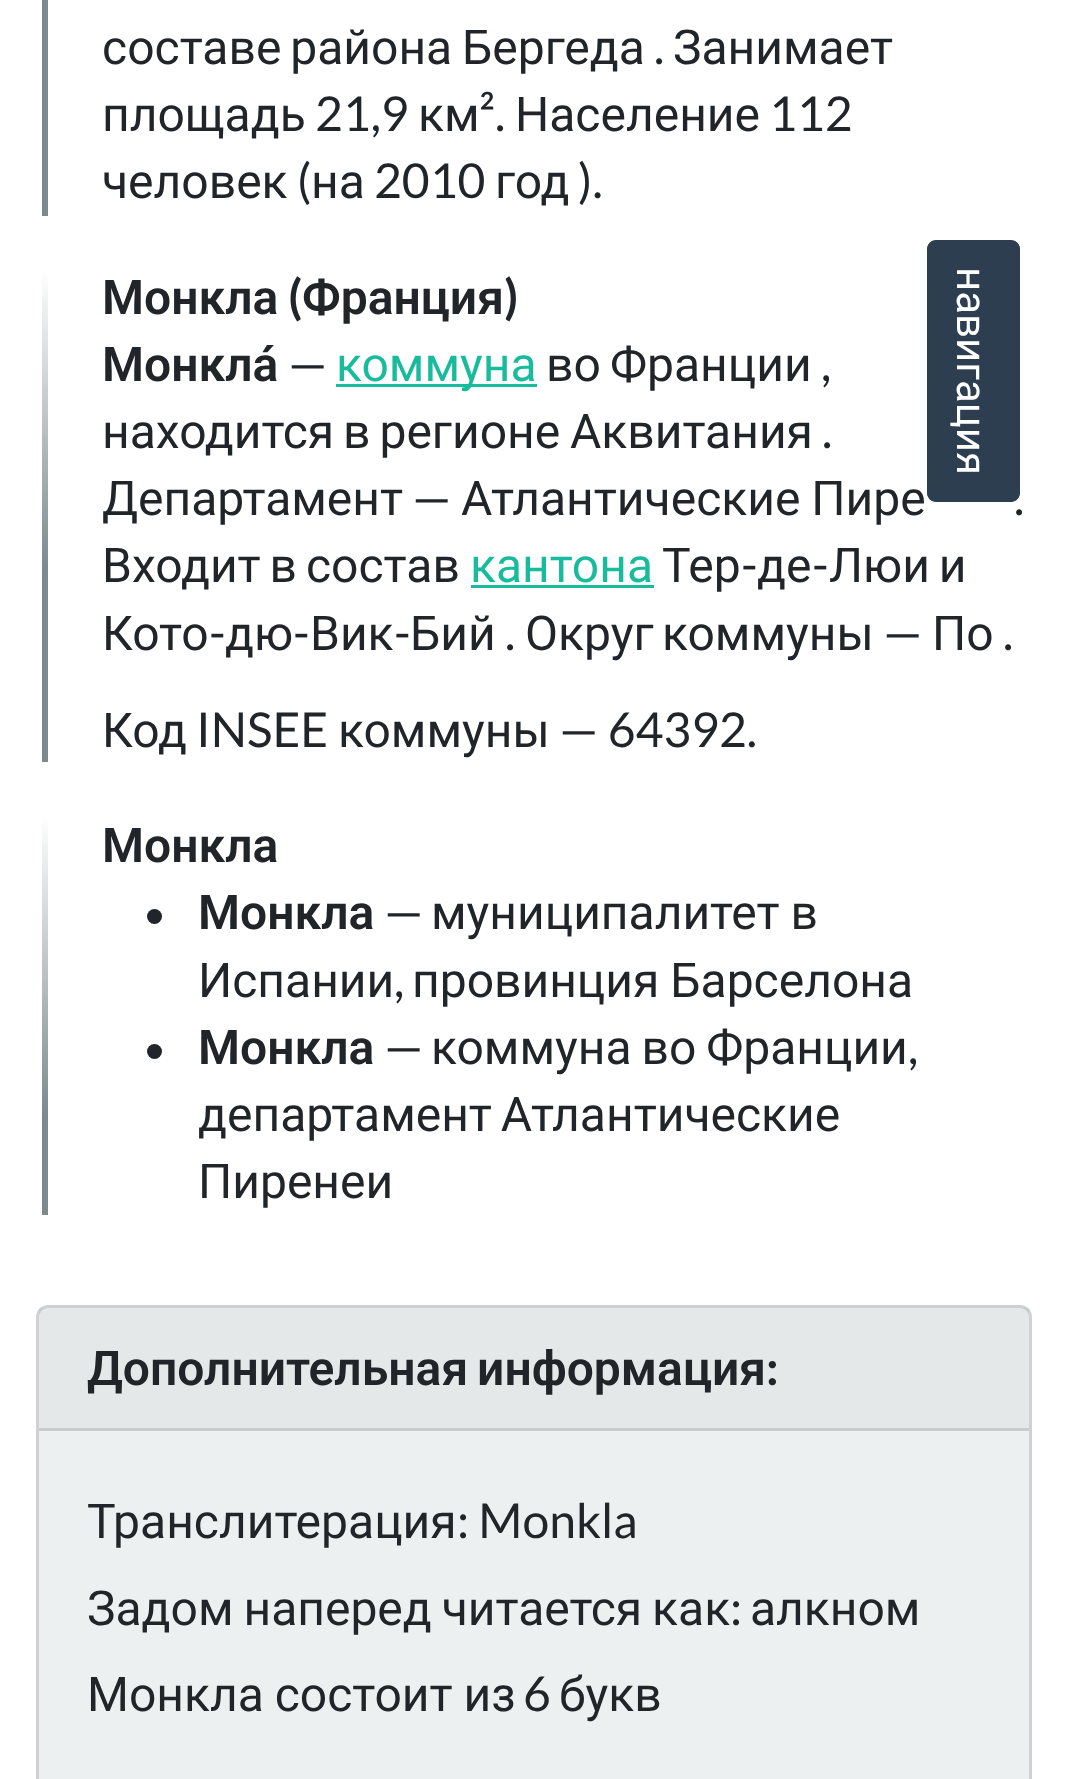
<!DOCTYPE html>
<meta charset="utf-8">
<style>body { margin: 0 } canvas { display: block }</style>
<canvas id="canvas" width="1067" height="1779"></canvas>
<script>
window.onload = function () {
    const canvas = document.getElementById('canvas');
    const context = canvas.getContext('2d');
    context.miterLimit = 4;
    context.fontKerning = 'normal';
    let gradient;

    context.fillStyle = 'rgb(255, 255, 255)';
    context.fillRect(0, 0, 1067, 1779);
    gradient = context.createLinearGradient(45, -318, 45, 222);
    gradient.addColorStop(0, 'rgb(255, 255, 255)');
    gradient.addColorStop(0.56, 'rgb(123, 138, 139)');
    context.fillStyle = gradient;
    context.fillRect(42, 0, 6, 216);
    gradient = context.createLinearGradient(45, 270, 45, 768);
    gradient.addColorStop(0, 'rgb(255, 255, 255)');
    gradient.addColorStop(0.6, 'rgb(123, 138, 139)');
    context.fillStyle = gradient;
    context.fillRect(42, 270, 6, 492);
    context.fillStyle = 'rgb(24, 188, 156)';
    context.fillRect(336, 384, 201, 3);
    context.fillRect(471, 585, 183, 3);
    gradient = context.createLinearGradient(45, 816, 45, 1221);
    gradient.addColorStop(0, 'rgb(255, 255, 255)');
    gradient.addColorStop(0.74, 'rgb(123, 138, 139)');
    context.fillStyle = gradient;
    context.fillRect(42, 816, 6, 399);
    context.fillStyle = 'rgb(33, 37, 41)';
    context.beginPath();
    context.arc(154.5, 916.5, 7.5, 0, 2 * Math.PI);
    context.fill();
    context.beginPath();
    context.arc(154.5, 1051.5, 7.5, 0, 2 * Math.PI);
    context.fill();
    context.fillStyle = 'rgb(44, 62, 80)';
    context.beginPath();
    context.moveTo(1020, 250);
    context.lineTo(1020, 492);
    context.bezierCurveTo(1020, 498, 1016, 502, 1010, 502);
    context.lineTo(937, 502);
    context.bezierCurveTo(931, 502, 927, 498, 927, 492);
    context.lineTo(927, 250);
    context.bezierCurveTo(927, 244, 931, 240, 937, 240);
    context.lineTo(1010, 240);
    context.bezierCurveTo(1016, 240, 1020, 244, 1020, 250);
    context.closePath();
    context.fill();
    context.beginPath();
    context.moveTo(1018.5, 249.5);
    context.lineTo(1018.5, 492.5);
    context.bezierCurveTo(1018.5, 497, 1015, 500.5, 1010.5, 500.5);
    context.lineTo(936.5, 500.5);
    context.bezierCurveTo(932, 500.5, 928.5, 497, 928.5, 492.5);
    context.lineTo(928.5, 249.5);
    context.bezierCurveTo(928.5, 245, 932, 241.5, 936.5, 241.5);
    context.lineTo(1010.5, 241.5);
    context.bezierCurveTo(1015, 241.5, 1018.5, 245, 1018.5, 249.5);
    context.closePath();
    context.strokeStyle = 'rgb(44, 62, 80)';
    context.lineWidth = 3;
    context.stroke();
    context.fillStyle = 'rgb(236, 240, 241)';
    context.beginPath();
    context.roundRect(36, 1305, 996, 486, 12);
    context.fill();
    context.beginPath();
    context.roundRect(37.5, 1306.5, 993, 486, 10.5);
    context.strokeStyle = 'rgba(0, 0, 0, 0.12)';
    context.stroke();
    context.fillStyle = 'rgba(0, 0, 0, 0.03)';
    context.fillRect(39, 1308, 990, 120);
    context.fillStyle = 'rgb(200, 204, 205)';
    context.fillRect(39, 1428, 990, 3);
    context.wordSpacing = '-3px';
    context.font = '48px Roboto';
    context.fillStyle = 'rgb(33, 37, 41)';
    context.fillText('составе района', 102, 64);
    context.wordSpacing = '0px';
    context.fillText('Бергеда', 462, 64);
    context.font = '48px Lato';
    context.fillText('.', 654, 64);
    context.font = '48px Roboto';
    context.fillText('Занимает', 673, 64);
    context.fillText('площадь', 102, 131);
    context.font = '48px Lato';
    context.fillText('21,9', 315, 131);
    context.font = '48px Roboto';
    context.fillText('км', 418, 131);
    context.font = '48px Lato';
    context.fillText('².', 479, 131);
    context.font = '48px Roboto';
    context.fillText('Население', 515, 131);
    context.font = '48px Lato';
    context.fillText('112', 769, 131);
    context.font = '48px Roboto';
    context.fillText('человек', 102, 198);
    context.font = '48px Lato';
    context.fillText('(', 297, 198);
    context.font = '48px Roboto';
    context.fillText('на', 311, 198);
    context.font = '48px Lato';
    context.fillText('2010', 374, 198);
    context.font = '48px Roboto';
    context.fillText('год', 495, 198);
    context.font = '48px Lato';
    context.fillText(').', 578, 198);
    context.font = '600 48px Roboto';
    context.fillText('Монкла', 102, 314);
    context.font = 'bold 48px Lato';
    context.fillText('(', 288, 314);
    context.font = '600 48px Roboto';
    context.fillText('Франция', 302, 314);
    context.font = 'bold 48px Lato';
    context.fillText(')', 504, 314);
    context.font = '600 48px Roboto';
    context.fillText('Монкла́', 102, 381);
    context.font = '48px Lato';
    context.fillText('—', 288, 381);
    context.font = '48px Roboto';
    context.fillStyle = 'rgb(24, 188, 156)';
    context.fillText('коммуна', 336, 381);
    context.fillStyle = 'rgb(33, 37, 41)';
    context.fillText('во', 546, 381);
    context.fillText('Франции', 610, 381);
    context.font = '48px Lato';
    context.fillText(',', 821, 381);
    context.wordSpacing = '-3px';
    context.font = '48px Roboto';
    context.fillText('находится в регионе', 102, 448);
    context.wordSpacing = '0px';
    context.fillText('Аквитания', 570, 448);
    context.font = '48px Lato';
    context.fillText('.', 822, 448);
    context.font = '48px Roboto';
    context.fillText('Департамент', 102, 515);
    context.font = '48px Lato';
    context.fillText('—', 412, 515);
    context.wordSpacing = '-1px';
    context.font = '48px Roboto';
    context.fillText('Атлантические Пире', 461, 515);
    context.wordSpacing = '0px';
    context.font = '48px Lato';
    context.fillText('.', 1014, 515);
    context.wordSpacing = '-3px';
    context.font = '48px Roboto';
    context.fillText('Входит в состав', 102, 582);
    context.wordSpacing = '0px';
    context.fillStyle = 'rgb(24, 188, 156)';
    context.fillText('кантона', 470, 582);
    context.fillStyle = 'rgb(33, 37, 41)';
    context.fillText('Тер', 662, 582);
    context.font = '48px Lato';
    context.fillText('-', 741, 582);
    context.font = '48px Roboto';
    context.fillText('де', 757, 582);
    context.font = '48px Lato';
    context.fillText('-', 812, 582);
    context.wordSpacing = '-3px';
    context.font = '48px Roboto';
    context.fillText('Люи и', 829, 582);
    context.wordSpacing = '0px';
    context.fillText('Кото', 102, 650);
    context.font = '48px Lato';
    context.fillText('-', 209, 650);
    context.font = '48px Roboto';
    context.fillText('дю', 225, 650);
    context.font = '48px Lato';
    context.fillText('-', 293, 650);
    context.font = '48px Roboto';
    context.fillText('Вик', 310, 650);
    context.font = '48px Lato';
    context.fillText('-', 394, 650);
    context.font = '48px Roboto';
    context.fillText('Бий', 410, 650);
    context.fillText('Округ', 525, 650);
    context.fillText('коммуны', 662, 650);
    context.font = '48px Lato';
    context.fillText('—', 883, 650);
    context.font = '48px Roboto';
    context.fillText('По', 932, 650);
    context.font = '48px Lato';
    context.fillText('.', 505, 650);
    context.fillText('.', 1003, 650);
    context.font = '48px Roboto';
    context.fillText('Код', 102, 747);
    context.font = '48px Lato';
    context.fillText('INSEE', 196, 747);
    context.font = '48px Roboto';
    context.fillText('коммуны', 338, 747);
    context.font = '48px Lato';
    context.fillText('— 64392.', 559, 747);
    context.font = '600 48px Roboto';
    context.fillText('Монкла', 102, 862);
    context.fillText('Монкла', 198, 929);
    context.font = '48px Lato';
    context.fillText('—', 384, 929);
    context.wordSpacing = '-1px';
    context.font = '48px Roboto';
    context.fillText('муниципалитет в', 431, 929);
    context.wordSpacing = '0px';
    context.fillText('Испании', 198, 997);
    context.font = '48px Lato';
    context.fillText(',', 394, 997);
    context.wordSpacing = '-1px';
    context.font = '48px Roboto';
    context.fillText('провинция Барселона', 412, 997);
    context.wordSpacing = '0px';
    context.font = '600 48px Roboto';
    context.fillText('Монкла', 198, 1064);
    context.font = '48px Lato';
    context.fillText('—', 384, 1064);
    context.wordSpacing = '-2px';
    context.font = '48px Roboto';
    context.fillText('коммуна во Франции', 431, 1064);
    context.wordSpacing = '0px';
    context.font = '48px Lato';
    context.fillText(',', 908, 1064);
    context.wordSpacing = '-3px';
    context.font = '48px Roboto';
    context.fillText('департамент Атлантические', 198, 1131);
    context.wordSpacing = '0px';
    context.fillText('Пиренеи', 198, 1198);
    context.font = '42px Roboto';
    context.fillStyle = 'rgb(255, 255, 255)';
    context.save();
    context.translate(957, 267);
    context.rotate(90 * Math.PI / 180);
    context.fillText('навигация', 0, 0);
    context.restore();
    context.wordSpacing = '-3px';
    context.font = '600 48px Roboto';
    context.fillStyle = 'rgb(33, 37, 41)';
    context.fillText('Дополнительная информация', 87, 1385);
    context.wordSpacing = '0px';
    context.font = 'bold 48px Lato';
    context.fillText(':', 766, 1385);
    context.font = '48px Roboto';
    context.fillText('Транслитерация', 87, 1538);
    context.font = '48px Lato';
    context.fillText(': Monkla', 457, 1538);
    context.wordSpacing = '-2px';
    context.font = '48px Roboto';
    context.fillText('Задом наперед читается как', 87, 1625);
    context.wordSpacing = '0px';
    context.font = '48px Lato';
    context.fillText(':', 730, 1625);
    context.font = '48px Roboto';
    context.fillText('алкном', 750, 1625);
    context.wordSpacing = '-1px';
    context.fillText('Монкла состоит из', 87, 1711);
    context.wordSpacing = '0px';
    context.font = '48px Lato';
    context.fillText('6', 523, 1711);
    context.font = '48px Roboto';
    context.fillText('букв', 559, 1711);
};
</script>
